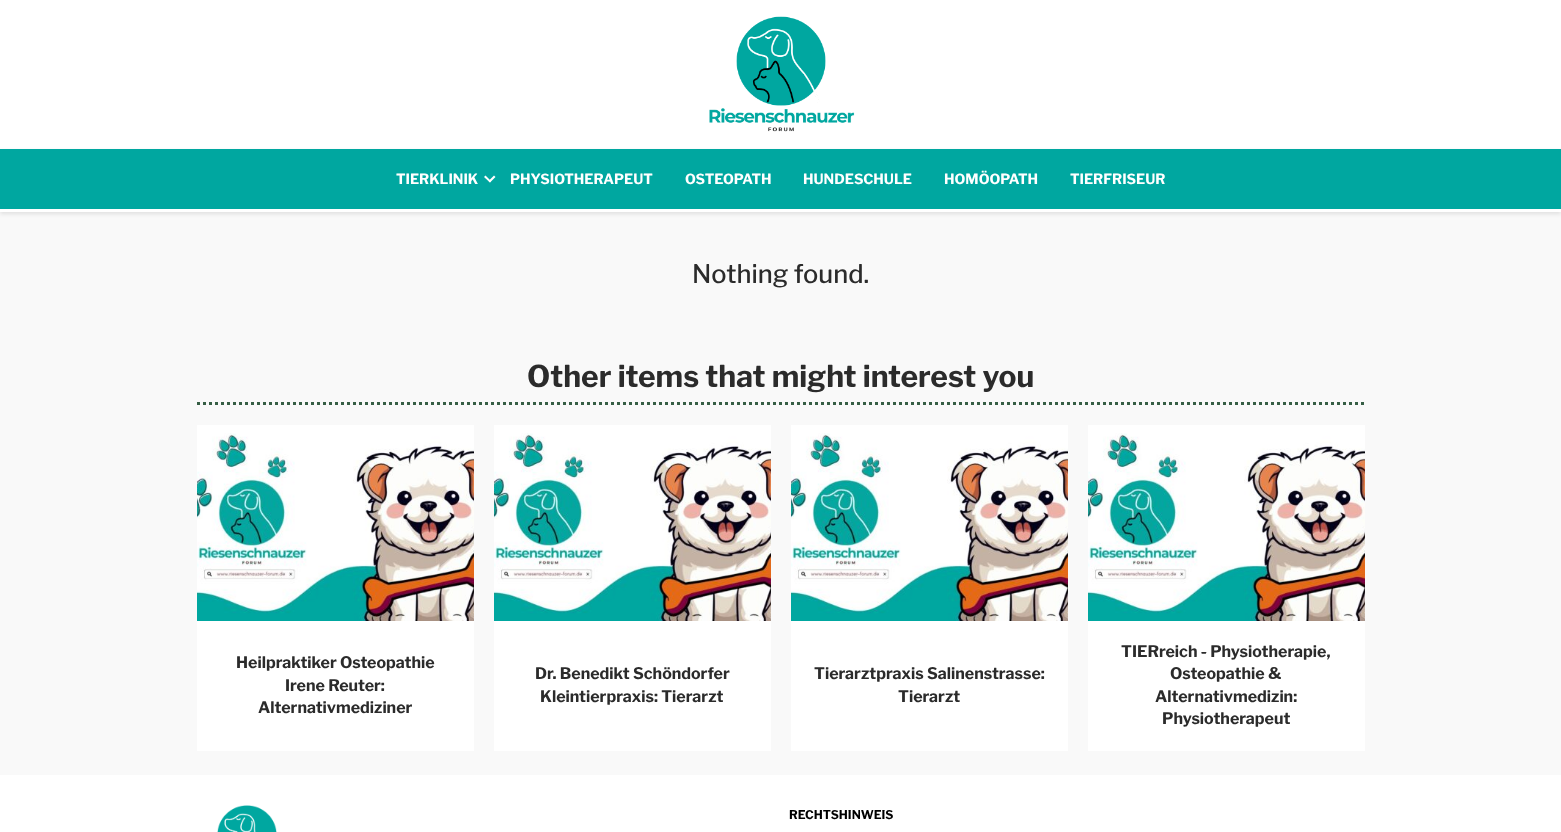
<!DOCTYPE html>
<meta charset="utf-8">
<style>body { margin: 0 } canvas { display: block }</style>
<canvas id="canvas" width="1561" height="832"></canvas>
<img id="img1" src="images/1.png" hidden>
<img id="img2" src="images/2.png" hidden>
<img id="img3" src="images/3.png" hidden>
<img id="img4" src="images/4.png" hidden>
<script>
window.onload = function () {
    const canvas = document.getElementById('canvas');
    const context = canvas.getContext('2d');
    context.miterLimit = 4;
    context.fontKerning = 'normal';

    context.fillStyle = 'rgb(249, 249, 249)';
    context.fillRect(0, 0, 1561, 832);
    context.fillStyle = 'rgb(255, 255, 255)';
    context.fillRect(0, 0, 1561, 149);
    context.drawImage(document.getElementById('img1'), 709, 16, 146, 116);
    context.fillStyle = 'rgba(0, 0, 0, 0.1)';
    context.filter = 'blur(2px)';
    context.beginPath();
    context.rect(0, 151, 1561, 63);
    context.fill();
    context.filter = 'none';
    context.fillStyle = 'rgb(0, 167, 160)';
    context.fillRect(0, 149, 1561, 60);
    context.fillStyle = 'rgb(255, 255, 255)';
    context.fillRect(0, 209, 1561, 3);
    context.beginPath();
    context.moveTo(494, 175.5);
    context.lineTo(495.5, 177);
    context.lineTo(490, 182.5);
    context.lineTo(488.5, 181);
    context.closePath();
    context.fill();
    context.beginPath();
    context.moveTo(485.5, 175.5);
    context.lineTo(491, 181);
    context.lineTo(490, 182.5);
    context.lineTo(484, 177);
    context.closePath();
    context.fill();
    context.beginPath();
    context.moveTo(197, 403.5);
    context.lineTo(1365, 403.5);
    context.strokeStyle = 'rgb(54, 94, 69)';
    context.lineWidth = 3;
    context.setLineDash([3, 3]);
    context.stroke();
    context.fillRect(197, 425, 277, 326);
    context.drawImage(document.getElementById('img2'), 197, 433, 277, 188);
    context.fillRect(494, 425, 277, 326);
    context.drawImage(document.getElementById('img3'), 494, 433, 277, 188);
    context.fillRect(791, 425, 277, 326);
    context.drawImage(document.getElementById('img2'), 791, 433, 277, 188);
    context.fillRect(1088, 425, 277, 326);
    context.drawImage(document.getElementById('img2'), 1088, 433, 277, 188);
    context.fillRect(0, 775, 1561, 57);
    context.drawImage(document.getElementById('img4'), 217, 805, 60, 27);
    context.font = '100 14px Libre Franklin';
    context.fillText('TIERKLINIK', 396, 184);
    context.fillText('PHYSIOTHERAPEUT', 510, 184);
    context.fillText('OSTEOPATH', 685, 184);
    context.fillText('HUNDESCHULE', 803, 184);
    context.fillText('HOMÖOPATH', 944, 184);
    context.fillText('TIERFRISEUR', 1070, 184);
    context.font = '100 25.5px "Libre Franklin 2"';
    context.fillStyle = 'rgb(43, 43, 43)';
    context.fillText('Nothing found.', 692, 283);
    context.font = '100 30px Libre Franklin';
    context.fillText('Other items that might interest you', 527, 387);
    context.font = '100 16px Libre Franklin';
    context.fillText('Heilpraktiker Osteopathie', 236, 668);
    context.fillText('Irene Reuter:', 285, 691);
    context.fillText('Alternativmediziner', 258, 713);
    context.fillText('Dr. Benedikt Schöndorfer', 535, 679);
    context.fillText('Kleintierpraxis: Tierarzt', 540, 702);
    context.fillText('Tierarztpraxis Salinenstrasse:', 814, 679);
    context.fillText('Tierarzt', 898, 702);
    context.fillText('TIERreich - Physiotherapie,', 1121, 657);
    context.fillText('Osteopathie &', 1170, 679);
    context.fillText('Alternativmedizin:', 1155, 702);
    context.fillText('Physiotherapeut', 1162, 724);
    context.font = '100 12px Libre Franklin';
    context.fillStyle = 'rgb(0, 0, 0)';
    context.fillText('RECHTSHINWEIS', 789, 819);
};
</script>
